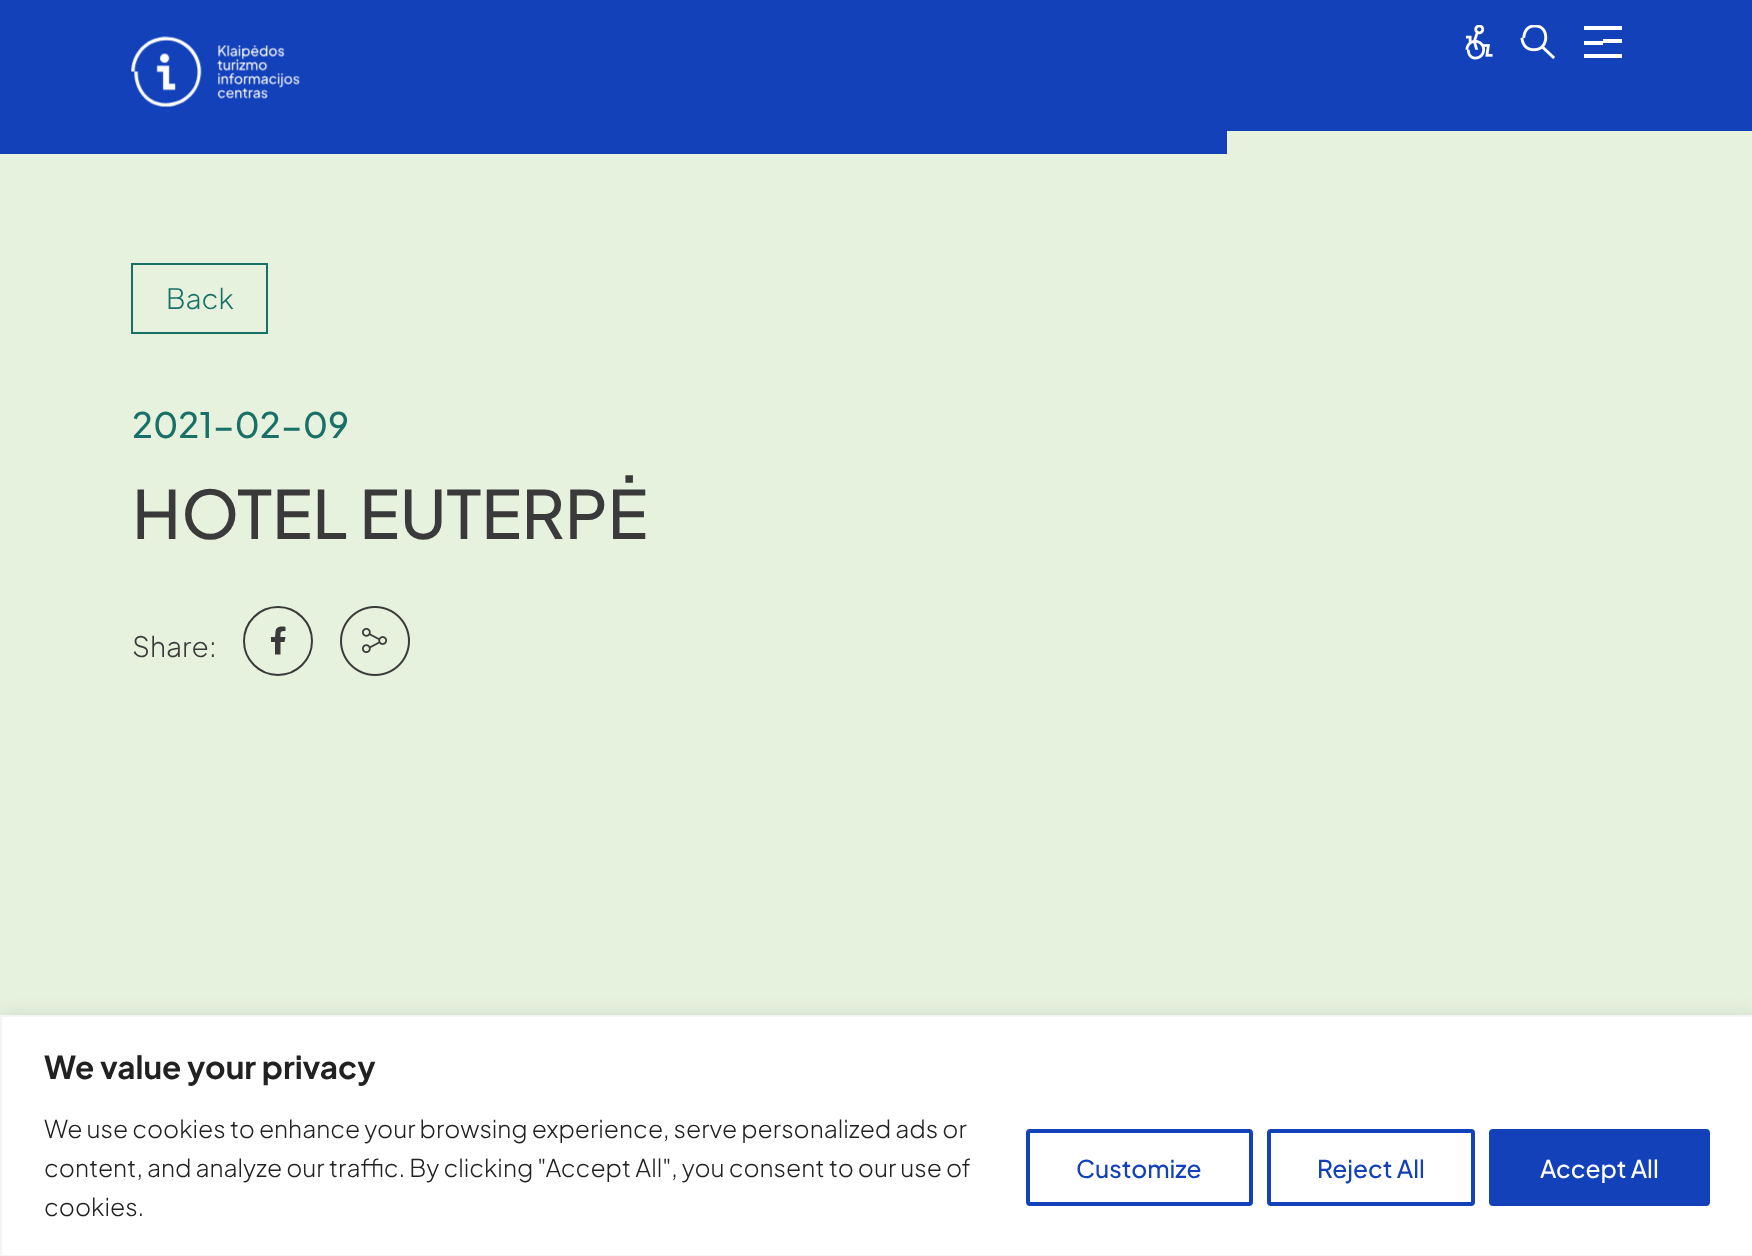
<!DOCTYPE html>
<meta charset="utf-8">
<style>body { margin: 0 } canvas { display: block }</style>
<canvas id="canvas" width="1752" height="1256"></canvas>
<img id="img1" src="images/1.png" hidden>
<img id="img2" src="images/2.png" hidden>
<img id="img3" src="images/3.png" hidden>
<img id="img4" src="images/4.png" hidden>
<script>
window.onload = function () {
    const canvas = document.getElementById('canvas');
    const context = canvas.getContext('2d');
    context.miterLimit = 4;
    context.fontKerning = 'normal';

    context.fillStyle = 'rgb(231, 242, 222)';
    context.fillRect(0, 0, 1752, 1256);
    context.fillStyle = 'rgb(19, 65, 186)';
    context.fillRect(0, 0, 1752, 131);
    context.drawImage(document.getElementById('img1'), 131, 36, 169, 72);
    context.drawImage(document.getElementById('img2'), 1465, 25, 28, 35);
    context.drawImage(document.getElementById('img3'), 1520, 25, 35, 34);
    context.fillStyle = 'rgb(255, 255, 255)';
    context.fillRect(1584, 26, 38, 4);
    context.fillRect(1584, 41, 19, 4);
    context.fillRect(1603, 39, 19, 4);
    context.fillRect(1584, 54, 38, 4);
    context.fillStyle = 'rgb(19, 65, 186)';
    context.fillRect(0, 131, 1227, 23);
    context.strokeStyle = 'rgb(25, 112, 103)';
    context.lineWidth = 2;
    context.strokeRect(132, 264, 135, 69);
    context.beginPath();
    context.arc(278, 641, 34, 0, 2 * Math.PI);
    context.strokeStyle = 'rgb(58, 58, 58)';
    context.stroke();
    context.fillStyle = 'rgb(58, 58, 58)';
    context.beginPath();
    context.moveTo(284.5, 642);
    context.lineTo(285.5, 637);
    context.lineTo(280.5, 637);
    context.bezierCurveTo(280.5, 632, 280, 631, 285.5, 631);
    context.lineTo(285.5, 627);
    context.bezierCurveTo(281.5, 626, 276, 626.5, 275.5, 631.5);
    context.lineTo(275, 637);
    context.lineTo(271, 637);
    context.lineTo(271, 642);
    context.lineTo(275, 642);
    context.lineTo(275, 654.5);
    context.bezierCurveTo(277, 654.5, 279, 654.5, 280.5, 654.5);
    context.lineTo(280.5, 642);
    context.closePath();
    context.fill();
    context.drawImage(document.getElementById('img4'), 340, 606, 70, 70);
    context.fillStyle = 'rgba(172, 171, 171, 0.3)';
    context.filter = 'blur(9px)';
    context.beginPath();
    context.rect(0, 1013, 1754, 242);
    context.fill();
    context.filter = 'none';
    context.fillStyle = 'rgb(255, 255, 255)';
    context.beginPath();
    context.rect(1, 1016, 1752, 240);
    context.fill();
    context.strokeStyle = 'rgb(244, 244, 244)';
    context.stroke();
    context.beginPath();
    context.roundRect(1028, 1131, 223, 73, 2);
    context.strokeStyle = 'rgb(19, 65, 186)';
    context.lineWidth = 4;
    context.stroke();
    context.beginPath();
    context.roundRect(1269, 1131, 204, 73, 2);
    context.stroke();
    context.fillStyle = 'rgb(19, 65, 186)';
    context.beginPath();
    context.roundRect(1491, 1131, 217, 73, 2);
    context.fill();
    context.stroke();
    context.font = '300 28px Plus Jakarta Sans';
    context.fillStyle = 'rgb(25, 112, 103)';
    context.fillText('Back', 166, 309);
    context.font = '500 35px Plus Jakarta Sans';
    context.fillText('2021-02-09', 132, 438);
    context.font = '500 66.5px Plus Jakarta Sans';
    context.fillStyle = 'rgb(58, 58, 58)';
    context.fillText('HOTEL EUTERPĖ', 132, 539);
    context.font = '300 28px Plus Jakarta Sans';
    context.fillText('Share:', 132, 657);
    context.font = 'bold 31.5px Plus Jakarta Sans';
    context.fillStyle = 'rgb(33, 33, 33)';
    context.fillText('We value your privacy', 44, 1079);
    context.font = '300 24.5px Plus Jakarta Sans';
    context.fillText('We use cookies to enhance your browsing experience, serve personalized ads or', 44, 1138);
    context.fillText('content, and analyze our traffic. By clicking "Accept All", you consent to our use of', 44, 1177);
    context.fillText('cookies.', 44, 1216);
    context.font = '500 24.5px Plus Jakarta Sans';
    context.fillStyle = 'rgb(19, 65, 186)';
    context.fillText('Customize', 1076, 1178);
    context.fillText('Reject All', 1317, 1178);
    context.fillStyle = 'rgb(255, 255, 255)';
    context.fillText('Accept All', 1540, 1178);
};
</script>
